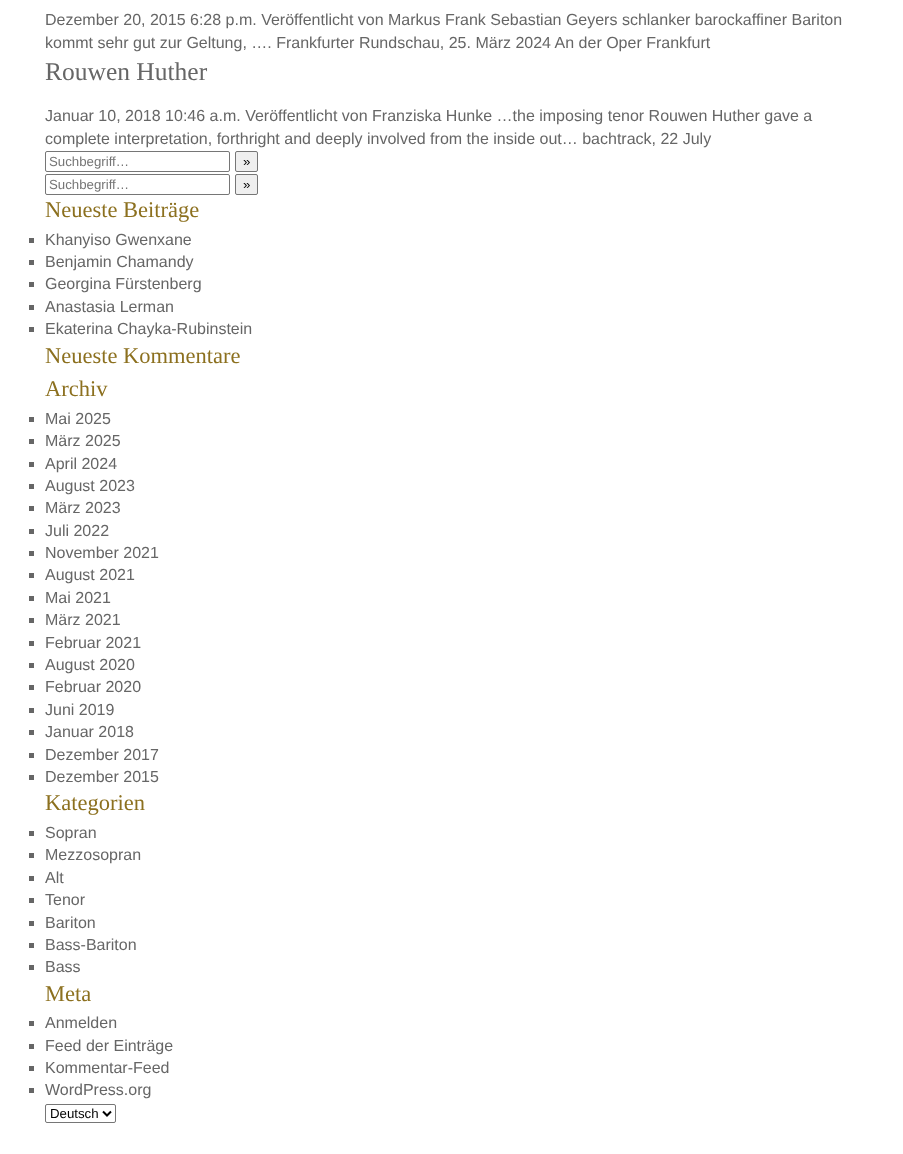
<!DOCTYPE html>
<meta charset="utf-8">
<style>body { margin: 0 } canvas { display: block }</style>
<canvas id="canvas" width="903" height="1154"></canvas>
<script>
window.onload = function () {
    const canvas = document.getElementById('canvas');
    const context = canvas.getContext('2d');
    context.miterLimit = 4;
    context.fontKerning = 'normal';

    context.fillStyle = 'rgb(255, 255, 255)';
    context.fillRect(0, 0, 903, 1154);
    context.beginPath();
    context.roundRect(45.5, 151.5, 184, 20, 1.5);
    context.strokeStyle = 'rgb(118, 118, 118)';
    context.stroke();
    context.fillStyle = 'rgb(239, 239, 239)';
    context.beginPath();
    context.roundRect(235.5, 151.5, 22, 20, 1.5);
    context.fill();
    context.stroke();
    context.beginPath();
    context.roundRect(45.5, 174.5, 184, 20, 1.5);
    context.stroke();
    context.beginPath();
    context.roundRect(235.5, 174.5, 22, 20, 1.5);
    context.fill();
    context.stroke();
    context.fillStyle = 'rgb(102, 102, 102)';
    context.fillRect(29, 238, 5, 5);
    context.fillRect(29, 260, 5, 5);
    context.fillRect(29, 282, 5, 5);
    context.fillRect(29, 305, 5, 5);
    context.fillRect(29, 327, 5, 5);
    context.fillRect(29, 417, 5, 5);
    context.fillRect(29, 439, 5, 5);
    context.fillRect(29, 462, 5, 5);
    context.fillRect(29, 484, 5, 5);
    context.fillRect(29, 506, 5, 5);
    context.fillRect(29, 529, 5, 5);
    context.fillRect(29, 551, 5, 5);
    context.fillRect(29, 573, 5, 5);
    context.fillRect(29, 596, 5, 5);
    context.fillRect(29, 618, 5, 5);
    context.fillRect(29, 641, 5, 5);
    context.fillRect(29, 663, 5, 5);
    context.fillRect(29, 685, 5, 5);
    context.fillRect(29, 708, 5, 5);
    context.fillRect(29, 730, 5, 5);
    context.fillRect(29, 753, 5, 5);
    context.fillRect(29, 775, 5, 5);
    context.fillRect(29, 831, 5, 5);
    context.fillRect(29, 853, 5, 5);
    context.fillRect(29, 876, 5, 5);
    context.fillRect(29, 898, 5, 5);
    context.fillRect(29, 921, 5, 5);
    context.fillRect(29, 943, 5, 5);
    context.fillRect(29, 965, 5, 5);
    context.fillRect(29, 1021, 5, 5);
    context.fillRect(29, 1044, 5, 5);
    context.fillRect(29, 1066, 5, 5);
    context.fillRect(29, 1088, 5, 5);
    context.beginPath();
    context.roundRect(45.5, 1104.5, 70, 18, 1.5);
    context.stroke();
    context.beginPath();
    context.moveTo(103, 1111.5);
    context.lineTo(107, 1115.5);
    context.lineTo(111, 1111.5);
    context.strokeStyle = 'rgb(0, 0, 0)';
    context.lineWidth = 2;
    context.stroke();
    context.font = '16px Liberation Sans';
    context.fillText('Dezember 20, 2015 6:28 p.m. Veröffentlicht von Markus Frank Sebastian Geyers schlanker barockaffiner Bariton', 45, 25);
    context.fillText('kommt sehr gut zur Geltung, …. Frankfurter Rundschau, 25. März 2024 An der Oper Frankfurt', 45, 48);
    context.font = '25.5px Liberation Serif';
    context.fillText('Rouwen Huther', 45, 80);
    context.font = '16px Liberation Sans';
    context.fillText('Januar 10, 2018 10:46 a.m. Veröffentlicht von Franziska Hunke …the imposing tenor Rouwen Huther gave a', 45, 121);
    context.fillText('complete interpretation, forthright and deeply involved from the inside out… bachtrack, 22 July', 45, 144);
    context.font = '13.25px Liberation Sans';
    context.fillStyle = 'rgb(117, 117, 117)';
    context.fillText('Suchbegriff…', 49, 166);
    context.fillStyle = 'rgb(0, 0, 0)';
    context.fillText('»', 243, 166);
    context.fillStyle = 'rgb(117, 117, 117)';
    context.fillText('Suchbegriff…', 49, 189);
    context.fillStyle = 'rgb(0, 0, 0)';
    context.fillText('»', 243, 189);
    context.font = '22.5px Liberation Serif';
    context.fillStyle = 'rgb(140, 112, 31)';
    context.fillText('Neueste Beiträge', 45, 217);
    context.font = '16px Liberation Sans';
    context.fillStyle = 'rgb(102, 102, 102)';
    context.fillText('Khanyiso Gwenxane', 45, 245);
    context.fillText('Benjamin Chamandy', 45, 267);
    context.fillText('Georgina Fürstenberg', 45, 289);
    context.fillText('Anastasia Lerman', 45, 312);
    context.fillText('Ekaterina Chayka-Rubinstein', 45, 334);
    context.font = '22.5px Liberation Serif';
    context.fillStyle = 'rgb(140, 112, 31)';
    context.fillText('Neueste Kommentare', 45, 363);
    context.fillText('Archiv', 45, 396);
    context.font = '16px Liberation Sans';
    context.fillStyle = 'rgb(102, 102, 102)';
    context.fillText('Mai 2025', 45, 424);
    context.fillText('März 2025', 45, 446);
    context.fillText('April 2024', 45, 469);
    context.fillText('August 2023', 45, 491);
    context.fillText('März 2023', 45, 513);
    context.fillText('Juli 2022', 45, 536);
    context.fillText('November 2021', 45, 558);
    context.fillText('August 2021', 45, 580);
    context.fillText('Mai 2021', 45, 603);
    context.fillText('März 2021', 45, 625);
    context.fillText('Februar 2021', 45, 648);
    context.fillText('August 2020', 45, 670);
    context.fillText('Februar 2020', 45, 692);
    context.fillText('Juni 2019', 45, 715);
    context.fillText('Januar 2018', 45, 737);
    context.fillText('Dezember 2017', 45, 760);
    context.fillText('Dezember 2015', 45, 782);
    context.font = '22.5px Liberation Serif';
    context.fillStyle = 'rgb(140, 112, 31)';
    context.fillText('Kategorien', 45, 810);
    context.font = '16px Liberation Sans';
    context.fillStyle = 'rgb(102, 102, 102)';
    context.fillText('Sopran', 45, 838);
    context.fillText('Mezzosopran', 45, 860);
    context.fillText('Alt', 45, 883);
    context.fillText('Tenor', 45, 905);
    context.fillText('Bariton', 45, 928);
    context.fillText('Bass-Bariton', 45, 950);
    context.fillText('Bass', 45, 972);
    context.font = '22.5px Liberation Serif';
    context.fillStyle = 'rgb(140, 112, 31)';
    context.fillText('Meta', 45, 1001);
    context.font = '16px Liberation Sans';
    context.fillStyle = 'rgb(102, 102, 102)';
    context.fillText('Anmelden', 45, 1028);
    context.fillText('Feed der Einträge', 45, 1051);
    context.fillText('Kommentar-Feed', 45, 1073);
    context.fillText('WordPress.org', 45, 1095);
    context.font = '13.25px Liberation Sans';
    context.fillStyle = 'rgb(0, 0, 0)';
    context.fillText('Deutsch', 50, 1118);
};
</script>
